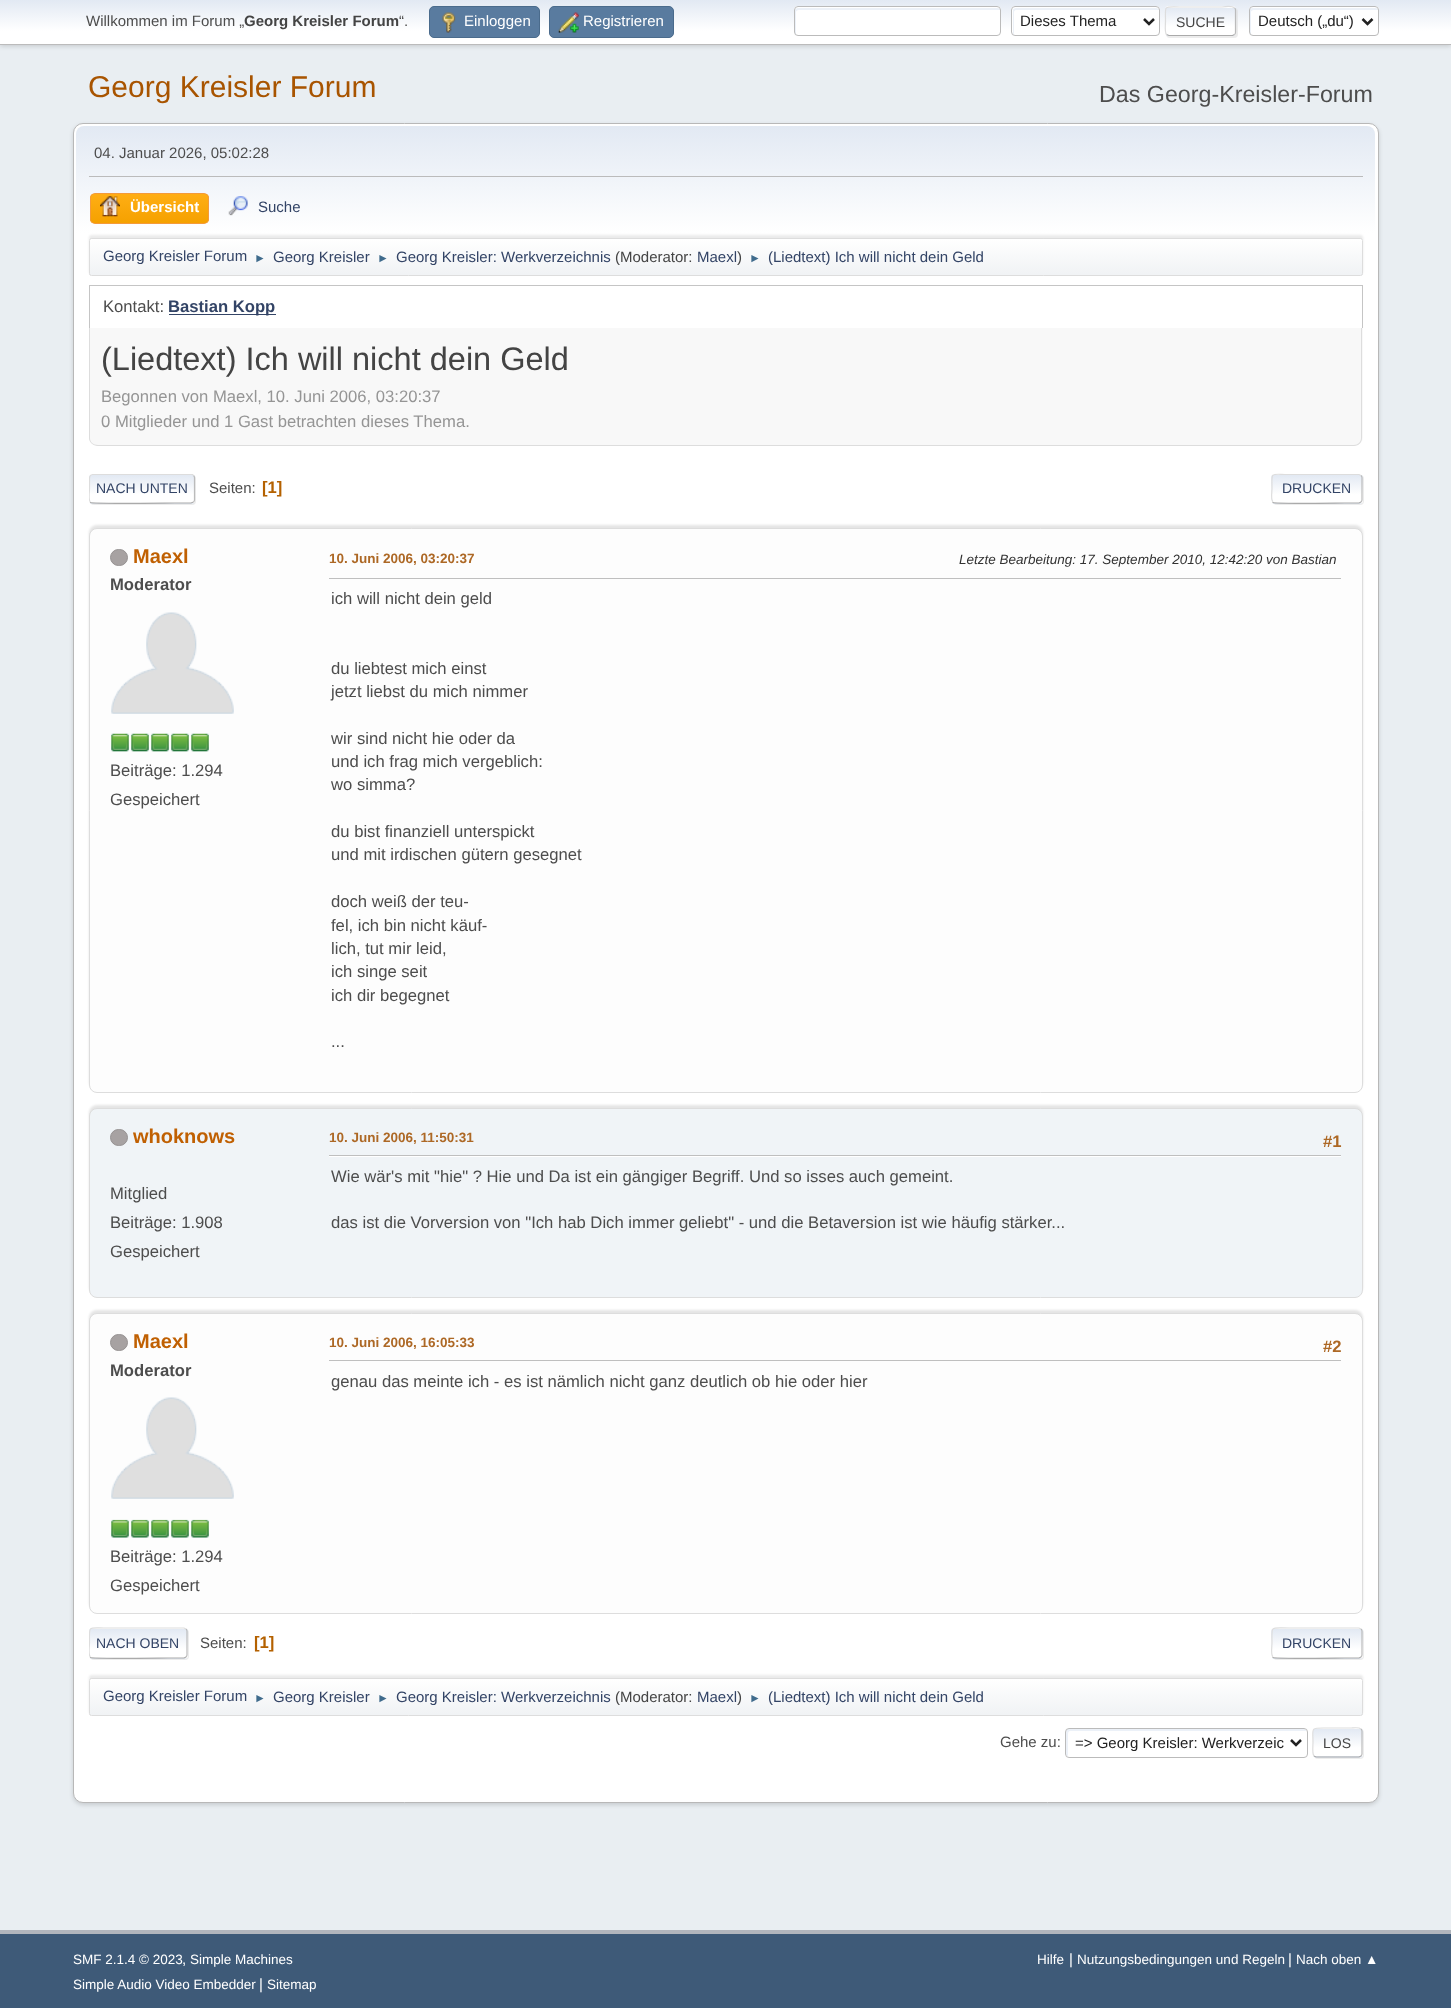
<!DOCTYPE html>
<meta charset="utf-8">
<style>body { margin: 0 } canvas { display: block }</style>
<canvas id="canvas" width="1451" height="2008"></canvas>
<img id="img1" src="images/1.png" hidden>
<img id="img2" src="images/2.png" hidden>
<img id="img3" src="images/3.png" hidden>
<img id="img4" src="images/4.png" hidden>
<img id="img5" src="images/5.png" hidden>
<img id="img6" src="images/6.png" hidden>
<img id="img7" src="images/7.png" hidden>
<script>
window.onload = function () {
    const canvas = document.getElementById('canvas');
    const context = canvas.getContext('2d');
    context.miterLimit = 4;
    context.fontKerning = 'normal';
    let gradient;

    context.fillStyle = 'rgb(233, 238, 242)';
    context.fillRect(0, 0, 1451, 2008);
    context.fillStyle = 'rgba(0, 0, 0, 0.16)';
    context.filter = 'blur(2.5px)';
    context.beginPath();
    context.rect(0, 1, 1451, 45);
    context.fill();
    context.filter = 'none';
    gradient = context.createLinearGradient(726, 0, 726, 44);
    gradient.addColorStop(0, 'rgb(226, 233, 243)');
    gradient.addColorStop(0.7, 'rgb(255, 255, 255)');
    context.fillStyle = gradient;
    context.fillRect(0, 0, 1451, 44);
    context.fillStyle = 'rgb(187, 187, 187)';
    context.fillRect(0, 44, 1451, 1);
    context.fillStyle = 'rgb(89, 123, 159)';
    context.beginPath();
    context.roundRect(429.5, 6.5, 110, 31, 4.5);
    context.fill();
    context.strokeStyle = 'rgb(74, 107, 140)';
    context.stroke();
    context.drawImage(document.getElementById('img1'), 442, 12, 14, 21);
    context.beginPath();
    context.roundRect(549.5, 6.5, 124, 31, 4.5);
    context.fill();
    context.stroke();
    context.drawImage(document.getElementById('img2'), 558, 12, 21, 21);
    context.fillStyle = 'rgb(255, 255, 255)';
    context.beginPath();
    context.roundRect(794, 6, 207, 30, 4);
    context.fill();
    context.fillStyle = 'rgb(236, 241, 248)';
    context.beginPath();
    context.moveTo(799, 10);
    context.lineTo(1000, 10);
    context.bezierCurveTo(1000, 9, 999, 8, 998, 8);
    context.lineTo(798, 8);
    context.bezierCurveTo(796, 8, 795, 9, 795, 10);
    context.lineTo(795, 32);
    context.bezierCurveTo(795, 33, 795, 34, 796, 35);
    context.lineTo(796, 12);
    context.bezierCurveTo(796, 11, 797, 10, 799, 10);
    context.closePath();
    context.fill();
    context.beginPath();
    context.roundRect(794.5, 6.5, 206, 29, 3.5);
    context.strokeStyle = 'rgb(187, 187, 187)';
    context.stroke();
    context.fillStyle = 'rgb(255, 255, 255)';
    context.beginPath();
    context.roundRect(1011, 6, 149, 30, 4);
    context.fill();
    context.fillStyle = 'rgb(236, 241, 248)';
    context.beginPath();
    context.moveTo(1016, 10);
    context.lineTo(1159, 10);
    context.bezierCurveTo(1159, 9, 1158, 8, 1156, 8);
    context.lineTo(1016, 8);
    context.bezierCurveTo(1014, 8, 1013, 9, 1013, 10);
    context.lineTo(1013, 32);
    context.bezierCurveTo(1013, 33, 1013, 34, 1014, 35);
    context.lineTo(1014, 12);
    context.bezierCurveTo(1014, 11, 1015, 10, 1016, 10);
    context.closePath();
    context.fill();
    context.beginPath();
    context.roundRect(1011.5, 6.5, 148, 29, 3.5);
    context.stroke();
    context.beginPath();
    context.moveTo(1144, 19);
    context.lineTo(1149, 24);
    context.lineTo(1154, 19);
    context.strokeStyle = 'rgb(34, 34, 34)';
    context.lineWidth = 2.5;
    context.stroke();
    context.fillStyle = 'rgba(221, 221, 221, 0.57)';
    context.filter = 'blur(0.5px)';
    context.beginPath();
    context.roundRect(1166, 8, 72, 30, 4);
    context.fill();
    context.filter = 'none';
    context.save();
    context.beginPath();
    context.roundRect(1165, 6, 71, 30, 4);
    context.clip();
    gradient = context.createLinearGradient(1201, -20, 1201, 7.5);
    gradient.addColorStop(0, 'rgb(226, 233, 243)');
    gradient.addColorStop(0.7, 'rgb(255, 255, 255)');
    context.fillStyle = gradient;
    context.fillRect(1165, 6, 71, 2);
    gradient = context.createLinearGradient(1201, 7.5, 1201, 35);
    gradient.addColorStop(0, 'rgb(226, 233, 243)');
    gradient.addColorStop(0.7, 'rgb(255, 255, 255)');
    context.fillStyle = gradient;
    context.fillRect(1165, 8, 71, 27);
    gradient = context.createLinearGradient(1201, 35, 1201, 63);
    gradient.addColorStop(0, 'rgb(226, 233, 243)');
    gradient.addColorStop(0.7, 'rgb(255, 255, 255)');
    context.fillStyle = gradient;
    context.fillRect(1165, 35, 71, 1);
    context.restore();
    context.beginPath();
    context.moveTo(1234.5, 8);
    context.bezierCurveTo(1235.5, 8.5, 1235.5, 9, 1235.5, 10);
    context.lineTo(1235.5, 32.5);
    context.bezierCurveTo(1235.5, 33.5, 1235.5, 34, 1234.5, 34.5);
    context.strokeStyle = 'rgb(187, 187, 187)';
    context.lineWidth = 1.2;
    context.stroke();
    context.beginPath();
    context.moveTo(1234.5, 34.5);
    context.lineTo(1232.5, 35.5);
    context.lineTo(1169, 35.5);
    context.lineTo(1166.5, 34.5);
    context.strokeStyle = 'rgb(170, 170, 170)';
    context.stroke();
    context.beginPath();
    context.moveTo(1166.5, 34.5);
    context.bezierCurveTo(1164.5, 32.5, 1165.5, 24, 1165.5, 21);
    context.bezierCurveTo(1165.5, 5, 1163, 7, 1179.5, 7);
    context.lineTo(1222, 7);
    context.bezierCurveTo(1222, 7, 1232, 5.5, 1234.5, 8);
    context.strokeStyle = 'rgb(221, 221, 221)';
    context.stroke();
    context.fillStyle = 'rgb(255, 255, 255)';
    context.beginPath();
    context.roundRect(1249, 6, 130, 30, 4);
    context.fill();
    context.fillStyle = 'rgb(236, 241, 248)';
    context.beginPath();
    context.moveTo(1254, 10);
    context.lineTo(1376, 10);
    context.lineTo(1378, 10);
    context.bezierCurveTo(1378, 9, 1377, 8, 1376, 8);
    context.lineTo(1252, 8);
    context.bezierCurveTo(1251, 8, 1250, 9, 1250, 10);
    context.lineTo(1250, 32);
    context.bezierCurveTo(1250, 33, 1250, 34, 1251, 35);
    context.lineTo(1251, 12);
    context.bezierCurveTo(1251, 11, 1252, 10, 1254, 10);
    context.closePath();
    context.fill();
    context.beginPath();
    context.roundRect(1249.5, 6.5, 129, 29, 3.5);
    context.strokeStyle = 'rgb(187, 187, 187)';
    context.lineWidth = 1;
    context.stroke();
    context.beginPath();
    context.moveTo(1362.5, 19);
    context.lineTo(1367.5, 24);
    context.lineTo(1372.5, 19);
    context.strokeStyle = 'rgb(34, 34, 34)';
    context.lineWidth = 2.5;
    context.stroke();
    context.fillStyle = 'rgba(0, 0, 0, 0.14)';
    context.filter = 'blur(2px)';
    context.beginPath();
    context.roundRect(73, 125, 1306, 1680, 10);
    context.fill();
    context.filter = 'none';
    context.fillStyle = 'rgb(255, 255, 255)';
    context.beginPath();
    context.roundRect(73.5, 123.5, 1305, 1679, 9.5);
    context.fill();
    context.strokeStyle = 'rgb(184, 184, 184)';
    context.lineWidth = 1;
    context.stroke();
    gradient = context.createLinearGradient(726, 126, 726, 279);
    gradient.addColorStop(0, 'rgb(226, 233, 243)');
    gradient.addColorStop(0.7, 'rgb(255, 255, 255)');
    context.fillStyle = gradient;
    context.beginPath();
    context.roundRect(76, 126, 1299, 153, [8, 8, 0, 0]);
    context.fill();
    context.fillStyle = 'rgb(187, 187, 187)';
    context.fillRect(89, 176, 1274, 1);
    context.save();
    context.beginPath();
    context.roundRect(90, 193, 119, 31, 5);
    context.clip();
    gradient = context.createLinearGradient(149, 194, 149, 223);
    gradient.addColorStop(0, 'rgb(255, 174, 20)');
    gradient.addColorStop(1, 'rgb(245, 161, 0)');
    context.fillStyle = gradient;
    context.fillRect(90, 194, 119, 29);
    context.restore();
    context.beginPath();
    context.roundRect(90.5, 193.5, 118, 30, 4.5);
    context.strokeStyle = 'rgb(244, 154, 58)';
    context.stroke();
    context.drawImage(document.getElementById('img3'), 100, 196, 20, 21);
    context.drawImage(document.getElementById('img4'), 228, 196, 20, 20);
    context.fillStyle = 'rgba(0, 0, 0, 0.08)';
    context.filter = 'blur(1px)';
    context.beginPath();
    context.roundRect(89, 235, 1274, 39, 2.5);
    context.fill();
    context.filter = 'none';
    context.save();
    context.beginPath();
    context.roundRect(89, 238, 1274, 38, 2.5);
    context.clip();
    gradient = context.createLinearGradient(726, 239, 726, 275);
    gradient.addColorStop(0, 'rgb(255, 255, 255)');
    gradient.addColorStop(0.95, 'rgb(241, 243, 245)');
    context.fillStyle = gradient;
    context.fillRect(89, 239, 1274, 36);
    context.restore();
    context.beginPath();
    context.roundRect(89.5, 238.5, 1273, 37, 2);
    context.strokeStyle = 'rgb(221, 221, 221)';
    context.stroke();
    context.strokeStyle = 'rgb(197, 197, 197)';
    context.strokeRect(89.5, 285.5, 1273, 44);
    context.fillStyle = 'rgb(51, 68, 102)';
    context.fillRect(169, 314, 107, 1);
    context.fillStyle = 'rgb(248, 248, 248)';
    context.beginPath();
    context.roundRect(89, 328, 1274, 118, [0, 0, 9, 9]);
    context.fill();
    context.fillStyle = 'rgb(221, 221, 221)';
    context.beginPath();
    context.moveTo(89, 328);
    context.lineTo(1362, 328);
    context.lineTo(1362, 438);
    context.bezierCurveTo(1362, 442, 1359, 446, 1354, 446);
    context.lineTo(98, 446);
    context.bezierCurveTo(93, 446, 89, 442, 89, 438);
    context.closePath();
    context.moveTo(90, 328);
    context.lineTo(1361, 328);
    context.lineTo(1361, 438);
    context.bezierCurveTo(1361, 442, 1358, 445, 1354, 445);
    context.lineTo(98, 445);
    context.bezierCurveTo(93, 445, 90, 442, 90, 438);
    context.closePath();
    context.fill('evenodd');
    context.fillStyle = 'rgba(221, 221, 221, 0.57)';
    context.filter = 'blur(0.5px)';
    context.beginPath();
    context.roundRect(90, 475, 106, 30, 4);
    context.fill();
    context.filter = 'none';
    context.save();
    context.beginPath();
    context.roundRect(89, 474, 106, 30, 4);
    context.clip();
    gradient = context.createLinearGradient(142, 475, 142, 503);
    gradient.addColorStop(0, 'rgb(226, 233, 243)');
    gradient.addColorStop(0.7, 'rgb(255, 255, 255)');
    context.fillStyle = gradient;
    context.fillRect(89, 475, 106, 28);
    gradient = context.createLinearGradient(142, 503, 142, 530);
    gradient.addColorStop(0, 'rgb(226, 233, 243)');
    gradient.addColorStop(0.7, 'rgb(255, 255, 255)');
    context.fillStyle = gradient;
    context.fillRect(89, 503, 106, 1);
    context.restore();
    context.beginPath();
    context.moveTo(193.5, 475.5);
    context.bezierCurveTo(194, 476, 194.5, 476.5, 194.5, 477.5);
    context.lineTo(194.5, 500);
    context.bezierCurveTo(194.5, 501, 194, 501.5, 193.5, 502);
    context.strokeStyle = 'rgb(187, 187, 187)';
    context.lineWidth = 1.2;
    context.stroke();
    context.beginPath();
    context.moveTo(193.5, 502);
    context.lineTo(191, 503);
    context.lineTo(175, 503);
    context.bezierCurveTo(166, 503, 92.5, 504, 90.5, 502.5);
    context.lineTo(90.5, 502);
    context.strokeStyle = 'rgb(170, 170, 170)';
    context.stroke();
    context.save();
    context.beginPath();
    context.rect(89, 465, 1274, 48);
    context.clip();
    context.beginPath();
    context.moveTo(90.5, 502);
    context.bezierCurveTo(88, 500, 89.5, 491.5, 89.5, 489);
    context.lineTo(89.5, 481);
    context.bezierCurveTo(89.5, 479, 89, 474.5, 92.5, 474.5);
    context.lineTo(175, 474.5);
    context.lineTo(192.5, 474.5);
    context.lineTo(193.5, 475.5);
    context.strokeStyle = 'rgb(221, 221, 221)';
    context.stroke();
    context.restore();
    context.filter = 'blur(0.5px)';
    context.beginPath();
    context.roundRect(1273, 475, 91, 30, 4);
    context.fill();
    context.filter = 'none';
    context.fillStyle = 'rgb(255, 255, 255)';
    context.beginPath();
    context.roundRect(1271, 474, 92, 30, 4);
    context.fill();
    context.save();
    context.beginPath();
    context.roundRect(1271, 474, 92, 30, 4);
    context.clip();
    gradient = context.createLinearGradient(1317, 475, 1317, 503);
    gradient.addColorStop(0, 'rgb(226, 233, 243)');
    gradient.addColorStop(0.7, 'rgb(255, 255, 255)');
    context.fillStyle = gradient;
    context.fillRect(1271, 475, 92, 28);
    gradient = context.createLinearGradient(1317, 503, 1317, 530);
    gradient.addColorStop(0, 'rgb(226, 233, 243)');
    gradient.addColorStop(0.7, 'rgb(255, 255, 255)');
    context.fillStyle = gradient;
    context.fillRect(1271, 503, 92, 1);
    context.restore();
    context.beginPath();
    context.moveTo(1361, 475.5);
    context.bezierCurveTo(1361.5, 476, 1362, 476.5, 1362, 477.5);
    context.lineTo(1362, 500);
    context.bezierCurveTo(1362, 501, 1361.5, 501.5, 1361, 502);
    context.strokeStyle = 'rgb(187, 187, 187)';
    context.stroke();
    context.beginPath();
    context.moveTo(1361, 502);
    context.lineTo(1359, 503);
    context.lineTo(1345, 503);
    context.bezierCurveTo(1337, 503, 1275, 504, 1273, 502.5);
    context.lineTo(1273, 502);
    context.strokeStyle = 'rgb(170, 170, 170)';
    context.stroke();
    context.beginPath();
    context.moveTo(1273, 502);
    context.bezierCurveTo(1270.5, 500, 1272, 491.5, 1272, 489);
    context.bezierCurveTo(1272, 471, 1269.5, 474.5, 1289, 474.5);
    context.lineTo(1359, 474.5);
    context.lineTo(1361, 475.5);
    context.strokeStyle = 'rgb(221, 221, 221)';
    context.stroke();
    context.fillStyle = 'rgba(0, 0, 0, 0.1)';
    context.filter = 'blur(1px)';
    context.beginPath();
    context.roundRect(89, 525, 1274, 565, 8);
    context.fill();
    context.filter = 'none';
    context.fillStyle = 'rgb(253, 253, 253)';
    context.beginPath();
    context.roundRect(89.5, 528.5, 1273, 564, 7.5);
    context.fill();
    context.lineWidth = 1;
    context.stroke();
    context.fillStyle = 'rgb(167, 162, 162)';
    context.beginPath();
    context.roundRect(110.5, 549.5, 17, 16, 8);
    context.fill();
    context.strokeStyle = 'rgb(150, 146, 146)';
    context.stroke();
    context.drawImage(document.getElementById('img5'), 111, 612, 123, 102);
    context.drawImage(document.getElementById('img6'), 111, 733, 18, 19);
    context.drawImage(document.getElementById('img6'), 131, 733, 18, 19);
    context.drawImage(document.getElementById('img6'), 151, 733, 18, 19);
    context.drawImage(document.getElementById('img6'), 171, 733, 18, 19);
    context.drawImage(document.getElementById('img6'), 191, 733, 18, 19);
    context.fillStyle = 'rgb(191, 191, 191)';
    context.fillRect(329, 578, 1012, 1);
    context.fillStyle = 'rgba(0, 0, 0, 0.1)';
    context.filter = 'blur(1px)';
    context.beginPath();
    context.roundRect(89, 1105, 1274, 190, 8);
    context.fill();
    context.filter = 'none';
    context.fillStyle = 'rgb(240, 244, 247)';
    context.beginPath();
    context.roundRect(89.5, 1108.5, 1273, 189, 7.5);
    context.fill();
    context.strokeStyle = 'rgb(221, 221, 221)';
    context.stroke();
    context.fillStyle = 'rgb(167, 162, 162)';
    context.beginPath();
    context.roundRect(110.5, 1129.5, 17, 16, 8);
    context.fill();
    context.strokeStyle = 'rgb(150, 146, 146)';
    context.stroke();
    context.fillStyle = 'rgb(255, 255, 255)';
    context.fillRect(329, 1156, 1012, 1);
    context.fillStyle = 'rgb(191, 191, 191)';
    context.fillRect(329, 1155, 1012, 1);
    context.fillStyle = 'rgba(0, 0, 0, 0.1)';
    context.filter = 'blur(1px)';
    context.beginPath();
    context.roundRect(89, 1310, 1274, 301, 8);
    context.fill();
    context.filter = 'none';
    context.fillStyle = 'rgb(253, 253, 253)';
    context.beginPath();
    context.roundRect(89.5, 1313.5, 1273, 300, 7.5);
    context.fill();
    context.strokeStyle = 'rgb(221, 221, 221)';
    context.stroke();
    context.fillStyle = 'rgb(167, 162, 162)';
    context.beginPath();
    context.roundRect(110.5, 1334.5, 17, 16, 8);
    context.fill();
    context.strokeStyle = 'rgb(150, 146, 146)';
    context.stroke();
    context.drawImage(document.getElementById('img5'), 111, 1397, 123, 102);
    context.drawImage(document.getElementById('img7'), 111, 1519, 18, 19);
    context.drawImage(document.getElementById('img7'), 131, 1519, 18, 19);
    context.drawImage(document.getElementById('img7'), 151, 1519, 18, 19);
    context.drawImage(document.getElementById('img7'), 171, 1519, 18, 19);
    context.drawImage(document.getElementById('img7'), 191, 1519, 18, 19);
    context.fillStyle = 'rgb(191, 191, 191)';
    context.fillRect(329, 1360, 1012, 1);
    context.fillStyle = 'rgba(221, 221, 221, 0.57)';
    context.filter = 'blur(0.5px)';
    context.beginPath();
    context.roundRect(90, 1629, 99, 31, 4);
    context.fill();
    context.filter = 'none';
    context.fillStyle = 'rgb(255, 255, 255)';
    context.beginPath();
    context.roundRect(89, 1628, 99, 31, 4);
    context.fill();
    context.save();
    context.beginPath();
    context.roundRect(89, 1628, 99, 31, 4);
    context.clip();
    gradient = context.createLinearGradient(138, 1629, 138, 1658);
    gradient.addColorStop(0, 'rgb(226, 233, 243)');
    gradient.addColorStop(0.7, 'rgb(255, 255, 255)');
    context.fillStyle = gradient;
    context.fillRect(89, 1629, 99, 29);
    gradient = context.createLinearGradient(138, 1658, 138, 1686);
    gradient.addColorStop(0, 'rgb(226, 233, 243)');
    gradient.addColorStop(0.7, 'rgb(255, 255, 255)');
    context.fillStyle = gradient;
    context.fillRect(89, 1658, 99, 1);
    context.restore();
    context.beginPath();
    context.moveTo(186, 1629);
    context.bezierCurveTo(186.5, 1629.5, 187, 1630.5, 187, 1631);
    context.lineTo(187, 1655);
    context.bezierCurveTo(187, 1656, 186.5, 1656.5, 186, 1657);
    context.strokeStyle = 'rgb(187, 187, 187)';
    context.lineWidth = 1.2;
    context.stroke();
    context.beginPath();
    context.moveTo(186, 1657);
    context.lineTo(184, 1658);
    context.lineTo(168.5, 1658);
    context.bezierCurveTo(160, 1658, 92.5, 1659, 90.5, 1657.5);
    context.lineTo(90.5, 1657);
    context.strokeStyle = 'rgb(170, 170, 170)';
    context.stroke();
    context.save();
    context.beginPath();
    context.rect(89, 1619, 1274, 49);
    context.clip();
    context.beginPath();
    context.moveTo(90.5, 1657);
    context.bezierCurveTo(88, 1655, 89.5, 1646, 89.5, 1643);
    context.bezierCurveTo(89.5, 1624.5, 87, 1628, 107.5, 1628);
    context.lineTo(184, 1628);
    context.lineTo(186, 1629);
    context.strokeStyle = 'rgb(221, 221, 221)';
    context.stroke();
    context.restore();
    context.fillStyle = 'rgba(221, 221, 221, 0.57)';
    context.filter = 'blur(0.5px)';
    context.beginPath();
    context.roundRect(1273, 1629, 91, 31, 4);
    context.fill();
    context.filter = 'none';
    context.fillStyle = 'rgb(255, 255, 255)';
    context.beginPath();
    context.roundRect(1271, 1628, 92, 31, 4);
    context.fill();
    context.save();
    context.beginPath();
    context.roundRect(1271, 1628, 92, 31, 4);
    context.clip();
    gradient = context.createLinearGradient(1317, 1629, 1317, 1658);
    gradient.addColorStop(0, 'rgb(226, 233, 243)');
    gradient.addColorStop(0.7, 'rgb(255, 255, 255)');
    context.fillStyle = gradient;
    context.fillRect(1271, 1629, 92, 29);
    gradient = context.createLinearGradient(1317, 1658, 1317, 1686);
    gradient.addColorStop(0, 'rgb(226, 233, 243)');
    gradient.addColorStop(0.7, 'rgb(255, 255, 255)');
    context.fillStyle = gradient;
    context.fillRect(1271, 1658, 92, 1);
    context.restore();
    context.beginPath();
    context.moveTo(1361, 1629);
    context.bezierCurveTo(1361.5, 1629.5, 1362, 1630.5, 1362, 1631);
    context.lineTo(1362, 1655);
    context.bezierCurveTo(1362, 1656, 1361.5, 1656.5, 1361, 1657);
    context.strokeStyle = 'rgb(187, 187, 187)';
    context.stroke();
    context.beginPath();
    context.moveTo(1361, 1657);
    context.lineTo(1359, 1658);
    context.lineTo(1345, 1658);
    context.bezierCurveTo(1337, 1658, 1275, 1659, 1273, 1657.5);
    context.lineTo(1273, 1657);
    context.strokeStyle = 'rgb(170, 170, 170)';
    context.stroke();
    context.beginPath();
    context.moveTo(1273, 1657);
    context.bezierCurveTo(1270.5, 1655, 1272, 1646, 1272, 1643);
    context.bezierCurveTo(1272, 1625, 1269.5, 1628, 1289, 1628);
    context.lineTo(1359, 1628);
    context.lineTo(1361, 1629);
    context.strokeStyle = 'rgb(221, 221, 221)';
    context.stroke();
    context.fillStyle = 'rgba(0, 0, 0, 0.08)';
    context.filter = 'blur(1px)';
    context.beginPath();
    context.roundRect(89, 1675, 1274, 39, 2.5);
    context.fill();
    context.filter = 'none';
    context.save();
    context.beginPath();
    context.roundRect(89, 1678, 1274, 38, 2.5);
    context.clip();
    gradient = context.createLinearGradient(726, 1679, 726, 1715);
    gradient.addColorStop(0, 'rgb(255, 255, 255)');
    gradient.addColorStop(0.95, 'rgb(241, 243, 245)');
    context.fillStyle = gradient;
    context.fillRect(89, 1679, 1274, 36);
    context.restore();
    context.beginPath();
    context.roundRect(89.5, 1678.5, 1273, 37, 2);
    context.lineWidth = 1;
    context.stroke();
    context.fillStyle = 'rgb(236, 241, 248)';
    context.beginPath();
    context.moveTo(1070, 1731);
    context.lineTo(1306, 1731);
    context.bezierCurveTo(1306, 1730, 1305, 1729, 1304, 1729);
    context.lineTo(1068, 1729);
    context.bezierCurveTo(1067, 1729, 1066, 1730, 1066, 1732);
    context.lineTo(1066, 1754);
    context.bezierCurveTo(1066, 1755, 1067, 1756, 1068, 1756);
    context.lineTo(1068, 1734);
    context.bezierCurveTo(1068, 1732, 1069, 1731, 1070, 1731);
    context.closePath();
    context.fill();
    context.beginPath();
    context.roundRect(1065.5, 1728.5, 242, 29, 3.5);
    context.strokeStyle = 'rgb(187, 187, 187)';
    context.stroke();
    context.beginPath();
    context.moveTo(1291, 1740);
    context.lineTo(1296, 1745);
    context.lineTo(1301, 1740);
    context.strokeStyle = 'rgb(34, 34, 34)';
    context.lineWidth = 2.5;
    context.stroke();
    context.fillStyle = 'rgba(221, 221, 221, 0.57)';
    context.filter = 'blur(0.5px)';
    context.beginPath();
    context.roundRect(1314, 1729, 50, 30, 4);
    context.fill();
    context.filter = 'none';
    context.fillStyle = 'rgb(255, 255, 255)';
    context.beginPath();
    context.roundRect(1313, 1728, 50, 30, 4);
    context.fill();
    context.save();
    context.beginPath();
    context.roundRect(1313, 1728, 50, 30, 4);
    context.clip();
    gradient = context.createLinearGradient(1338, 1729, 1338, 1756);
    gradient.addColorStop(0, 'rgb(226, 233, 243)');
    gradient.addColorStop(0.7, 'rgb(255, 255, 255)');
    context.fillStyle = gradient;
    context.fillRect(1313, 1729, 50, 27);
    gradient = context.createLinearGradient(1338, 1756, 1338, 1784);
    gradient.addColorStop(0, 'rgb(226, 233, 243)');
    gradient.addColorStop(0.7, 'rgb(255, 255, 255)');
    context.fillStyle = gradient;
    context.fillRect(1313, 1756, 50, 2);
    context.restore();
    context.beginPath();
    context.moveTo(1361, 1729);
    context.bezierCurveTo(1361.5, 1729.5, 1362, 1730.5, 1362, 1731);
    context.lineTo(1362, 1754);
    context.bezierCurveTo(1362, 1754.5, 1361.5, 1755.5, 1361, 1756);
    context.strokeStyle = 'rgb(187, 187, 187)';
    context.lineWidth = 1.2;
    context.stroke();
    context.beginPath();
    context.moveTo(1361, 1756);
    context.lineTo(1359, 1757);
    context.lineTo(1316, 1757);
    context.lineTo(1314, 1756);
    context.strokeStyle = 'rgb(170, 170, 170)';
    context.stroke();
    context.beginPath();
    context.moveTo(1314, 1756);
    context.bezierCurveTo(1312, 1754, 1313, 1745, 1313, 1742.5);
    context.bezierCurveTo(1313, 1728.5, 1310, 1728, 1323.5, 1728);
    context.lineTo(1351.5, 1728);
    context.bezierCurveTo(1352.5, 1728, 1359, 1727, 1361, 1729);
    context.strokeStyle = 'rgb(221, 221, 221)';
    context.stroke();
    context.fillStyle = 'rgb(62, 90, 120)';
    context.fillRect(0, 1934, 1451, 74);
    context.fillStyle = 'rgb(178, 182, 189)';
    context.fillRect(0, 1930, 1451, 4);
    context.font = '15px Liberation Sans';
    context.fillStyle = 'rgb(77, 77, 77)';
    context.fillText('Willkommen im Forum „', 86, 26);
    context.font = 'bold 15px Liberation Sans';
    context.fillStyle = 'rgb(68, 68, 68)';
    context.fillText('Georg Kreisler Forum', 244, 26);
    context.font = '15px Liberation Sans';
    context.fillStyle = 'rgb(77, 77, 77)';
    context.fillText('“.', 399, 26);
    context.fillStyle = 'rgb(255, 255, 255)';
    context.fillText('Einloggen', 464, 26);
    context.fillText('Registrieren', 583, 26);
    context.fillStyle = 'rgb(34, 34, 34)';
    context.fillText('Dieses Thema', 1020, 26);
    context.font = '14px Liberation Sans';
    context.fillStyle = 'rgb(68, 68, 68)';
    context.fillText('SUCHE', 1176, 27);
    context.font = '15px Liberation Sans';
    context.fillStyle = 'rgb(34, 34, 34)';
    context.fillText('Deutsch („du“)', 1258, 26);
    context.font = '30px Liberation Sans';
    context.fillStyle = 'rgb(168, 84, 0)';
    context.fillText('Georg Kreisler Forum', 88, 97);
    context.font = '23.25px Liberation Sans';
    context.fillStyle = 'rgb(77, 77, 77)';
    context.fillText('Das Georg-Kreisler-Forum', 1099, 102);
    context.font = '15px Liberation Sans';
    context.fillText('04. Januar 2026, 05:02:28', 94, 158);
    context.font = 'bold 15px Liberation Sans';
    context.fillStyle = 'rgb(255, 255, 255)';
    context.fillText('Übersicht', 130, 212);
    context.font = '15px Liberation Sans';
    context.fillStyle = 'rgb(51, 68, 102)';
    context.fillText('Suche', 258, 212);
    context.fillText('Georg Kreisler Forum', 103, 261);
    context.font = '12px Liberation Sans';
    context.fillStyle = 'rgb(63, 107, 140)';
    context.fillText('►', 254, 262);
    context.font = '15px Liberation Sans';
    context.fillStyle = 'rgb(51, 68, 102)';
    context.fillText('Georg Kreisler', 273, 262);
    context.font = '12px Liberation Sans';
    context.fillStyle = 'rgb(63, 107, 140)';
    context.fillText('►', 377, 262);
    context.font = '15px Liberation Sans';
    context.fillStyle = 'rgb(51, 68, 102)';
    context.fillText('Georg Kreisler: Werkverzeichnis', 396, 262);
    context.fillStyle = 'rgb(68, 68, 68)';
    context.fillText('(Moderator:', 615, 262);
    context.fillStyle = 'rgb(51, 68, 102)';
    context.fillText('Maexl', 697, 262);
    context.fillStyle = 'rgb(68, 68, 68)';
    context.fillText(')', 737, 262);
    context.font = '12px Liberation Sans';
    context.fillStyle = 'rgb(63, 107, 140)';
    context.fillText('►', 749, 262);
    context.font = '15px Liberation Sans';
    context.fillStyle = 'rgb(51, 68, 102)';
    context.fillText('(Liedtext) Ich will nicht dein Geld', 768, 262);
    context.font = '16.65px Liberation Sans';
    context.fillStyle = 'rgb(77, 77, 77)';
    context.fillText('Kontakt:', 103, 312);
    context.font = 'bold 16.65px Liberation Sans';
    context.fillStyle = 'rgb(51, 68, 102)';
    context.fillText('Bastian Kopp', 168, 312);
    context.font = '32.5px Liberation Sans';
    context.fillStyle = 'rgb(68, 68, 68)';
    context.fillText('(Liedtext) Ich will nicht dein Geld', 101, 370);
    context.font = '16.65px Liberation Sans';
    context.fillStyle = 'rgb(149, 149, 149)';
    context.fillText('Begonnen von Maexl, 10. Juni 2006, 03:20:37', 101, 402);
    context.fillText('0 Mitglieder und 1 Gast betrachten dieses Thema.', 101, 427);
    context.font = '14px Liberation Sans';
    context.fillStyle = 'rgb(51, 68, 102)';
    context.fillText('NACH UNTEN', 96, 493);
    context.font = '15px Liberation Sans';
    context.fillStyle = 'rgb(77, 77, 77)';
    context.fillText('Seiten:', 209, 493);
    context.font = 'bold 16.65px Liberation Sans';
    context.fillStyle = 'rgb(180, 97, 0)';
    context.fillText('[1]', 262, 493);
    context.font = '14px Liberation Sans';
    context.fillStyle = 'rgb(51, 68, 102)';
    context.fillText('DRUCKEN', 1282, 493);
    context.font = 'bold 20px Liberation Sans';
    context.fillStyle = 'rgb(192, 96, 2)';
    context.fillText('Maexl', 133, 563);
    context.font = 'bold 16.65px Liberation Sans';
    context.fillStyle = 'rgb(77, 77, 77)';
    context.fillText('Moderator', 110, 590);
    context.font = '16.65px Liberation Sans';
    context.fillText('Beiträge: 1.294', 110, 776);
    context.fillText('Gespeichert', 110, 805);
    context.font = 'bold 13.5px Liberation Sans';
    context.fillStyle = 'rgb(173, 104, 37)';
    context.fillText('10. Juni 2006, 03:20:37', 329, 563);
    context.font = 'italic 13.5px Liberation Sans';
    context.fillStyle = 'rgb(51, 51, 51)';
    context.fillText('Letzte Bearbeitung: 17. September 2010, 12:42:20 von Bastian', 959, 564);
    context.font = '16.65px Liberation Sans';
    context.fillStyle = 'rgb(77, 77, 77)';
    context.fillText('ich will nicht dein geld', 331, 604);
    context.fillText('du liebtest mich einst', 331, 674);
    context.fillText('jetzt liebst du mich nimmer', 331, 697);
    context.fillText('wir sind nicht hie oder da', 331, 744);
    context.fillText('und ich frag mich vergeblich:', 331, 767);
    context.fillText('wo simma?', 331, 790);
    context.fillText('du bist finanziell unterspickt', 331, 837);
    context.fillText('und mit irdischen gütern gesegnet', 331, 860);
    context.fillText('doch weiß der teu-', 331, 907);
    context.fillText('fel, ich bin nicht käuf-', 331, 931);
    context.fillText('lich, tut mir leid,', 331, 954);
    context.fillText('ich singe seit', 331, 977);
    context.fillText('ich dir begegnet', 331, 1001);
    context.fillText('...', 331, 1047);
    context.font = 'bold 20px Liberation Sans';
    context.fillStyle = 'rgb(192, 96, 2)';
    context.fillText('whoknows', 133, 1143);
    context.font = '16.65px Liberation Sans';
    context.fillStyle = 'rgb(77, 77, 77)';
    context.fillText('Mitglied', 110, 1199);
    context.fillText('Beiträge: 1.908', 110, 1228);
    context.fillText('Gespeichert', 110, 1257);
    context.font = 'bold 13.5px Liberation Sans';
    context.fillStyle = 'rgb(173, 104, 37)';
    context.fillText('10. Juni 2006, 11:50:31', 329, 1142);
    context.font = 'bold 16.65px Liberation Sans';
    context.fillText('#1', 1323, 1147);
    context.font = '16.65px Liberation Sans';
    context.fillStyle = 'rgb(77, 77, 77)';
    context.fillText('Wie wär\'s mit "hie" ? Hie und Da ist ein gängiger Begriff. Und so isses auch gemeint.', 331, 1182);
    context.fillText('das ist die Vorversion von "Ich hab Dich immer geliebt" - und die Betaversion ist wie häufig stärker...', 331, 1228);
    context.font = 'bold 20px Liberation Sans';
    context.fillStyle = 'rgb(192, 96, 2)';
    context.fillText('Maexl', 133, 1348);
    context.font = 'bold 16.65px Liberation Sans';
    context.fillStyle = 'rgb(77, 77, 77)';
    context.fillText('Moderator', 110, 1376);
    context.font = '16.65px Liberation Sans';
    context.fillText('Beiträge: 1.294', 110, 1562);
    context.fillText('Gespeichert', 110, 1591);
    context.font = 'bold 13.5px Liberation Sans';
    context.fillStyle = 'rgb(173, 104, 37)';
    context.fillText('10. Juni 2006, 16:05:33', 329, 1347);
    context.font = 'bold 16.65px Liberation Sans';
    context.fillText('#2', 1323, 1352);
    context.font = '16.65px Liberation Sans';
    context.fillStyle = 'rgb(77, 77, 77)';
    context.fillText('genau das meinte ich - es ist nämlich nicht ganz deutlich ob hie oder hier', 331, 1387);
    context.font = '14px Liberation Sans';
    context.fillStyle = 'rgb(51, 68, 102)';
    context.fillText('NACH OBEN', 96, 1648);
    context.font = '15px Liberation Sans';
    context.fillStyle = 'rgb(77, 77, 77)';
    context.fillText('Seiten:', 200, 1648);
    context.font = 'bold 16.65px Liberation Sans';
    context.fillStyle = 'rgb(180, 97, 0)';
    context.fillText('[1]', 254, 1648);
    context.font = '14px Liberation Sans';
    context.fillStyle = 'rgb(51, 68, 102)';
    context.fillText('DRUCKEN', 1282, 1648);
    context.font = '15px Liberation Sans';
    context.fillText('Georg Kreisler Forum', 103, 1701);
    context.font = '12px Liberation Sans';
    context.fillStyle = 'rgb(63, 107, 140)';
    context.fillText('►', 254, 1702);
    context.font = '15px Liberation Sans';
    context.fillStyle = 'rgb(51, 68, 102)';
    context.fillText('Georg Kreisler', 273, 1702);
    context.font = '12px Liberation Sans';
    context.fillStyle = 'rgb(63, 107, 140)';
    context.fillText('►', 377, 1702);
    context.font = '15px Liberation Sans';
    context.fillStyle = 'rgb(51, 68, 102)';
    context.fillText('Georg Kreisler: Werkverzeichnis', 396, 1702);
    context.fillStyle = 'rgb(68, 68, 68)';
    context.fillText('(Moderator:', 615, 1702);
    context.fillStyle = 'rgb(51, 68, 102)';
    context.fillText('Maexl', 697, 1702);
    context.fillStyle = 'rgb(68, 68, 68)';
    context.fillText(')', 737, 1702);
    context.font = '12px Liberation Sans';
    context.fillStyle = 'rgb(63, 107, 140)';
    context.fillText('►', 749, 1702);
    context.font = '15px Liberation Sans';
    context.fillStyle = 'rgb(51, 68, 102)';
    context.fillText('(Liedtext) Ich will nicht dein Geld', 768, 1702);
    context.fillStyle = 'rgb(77, 77, 77)';
    context.fillText('Gehe zu:', 1000, 1747);
    context.fillStyle = 'rgb(34, 34, 34)';
    context.fillText('=> Georg Kreisler: Werkverzeic', 1075, 1748);
    context.font = '14px Liberation Sans';
    context.fillStyle = 'rgb(68, 68, 68)';
    context.fillText('LOS', 1323, 1748);
    context.font = '13.5px Liberation Sans';
    context.fillStyle = 'rgb(255, 255, 255)';
    context.fillText('SMF 2.1.4 © 2023', 73, 1964);
    context.font = '15px Liberation Sans';
    context.fillText(',', 182, 1964);
    context.font = '13.5px Liberation Sans';
    context.fillText('Simple Machines', 190, 1964);
    context.fillText('Simple Audio Video Embedder', 73, 1989);
    context.font = '15px Liberation Sans';
    context.fillText('|', 259, 1989);
    context.font = '13.5px Liberation Sans';
    context.fillText('Sitemap', 267, 1989);
    context.fillText('Hilfe', 1037, 1964);
    context.font = '15px Liberation Sans';
    context.fillText('|', 1069, 1964);
    context.font = '13.5px Liberation Sans';
    context.fillText('Nutzungsbedingungen und Regeln', 1077, 1964);
    context.font = '15px Liberation Sans';
    context.fillText('|', 1288, 1964);
    context.font = '13.5px Liberation Sans';
    context.fillText('Nach oben ▲', 1296, 1964);
};
</script>
